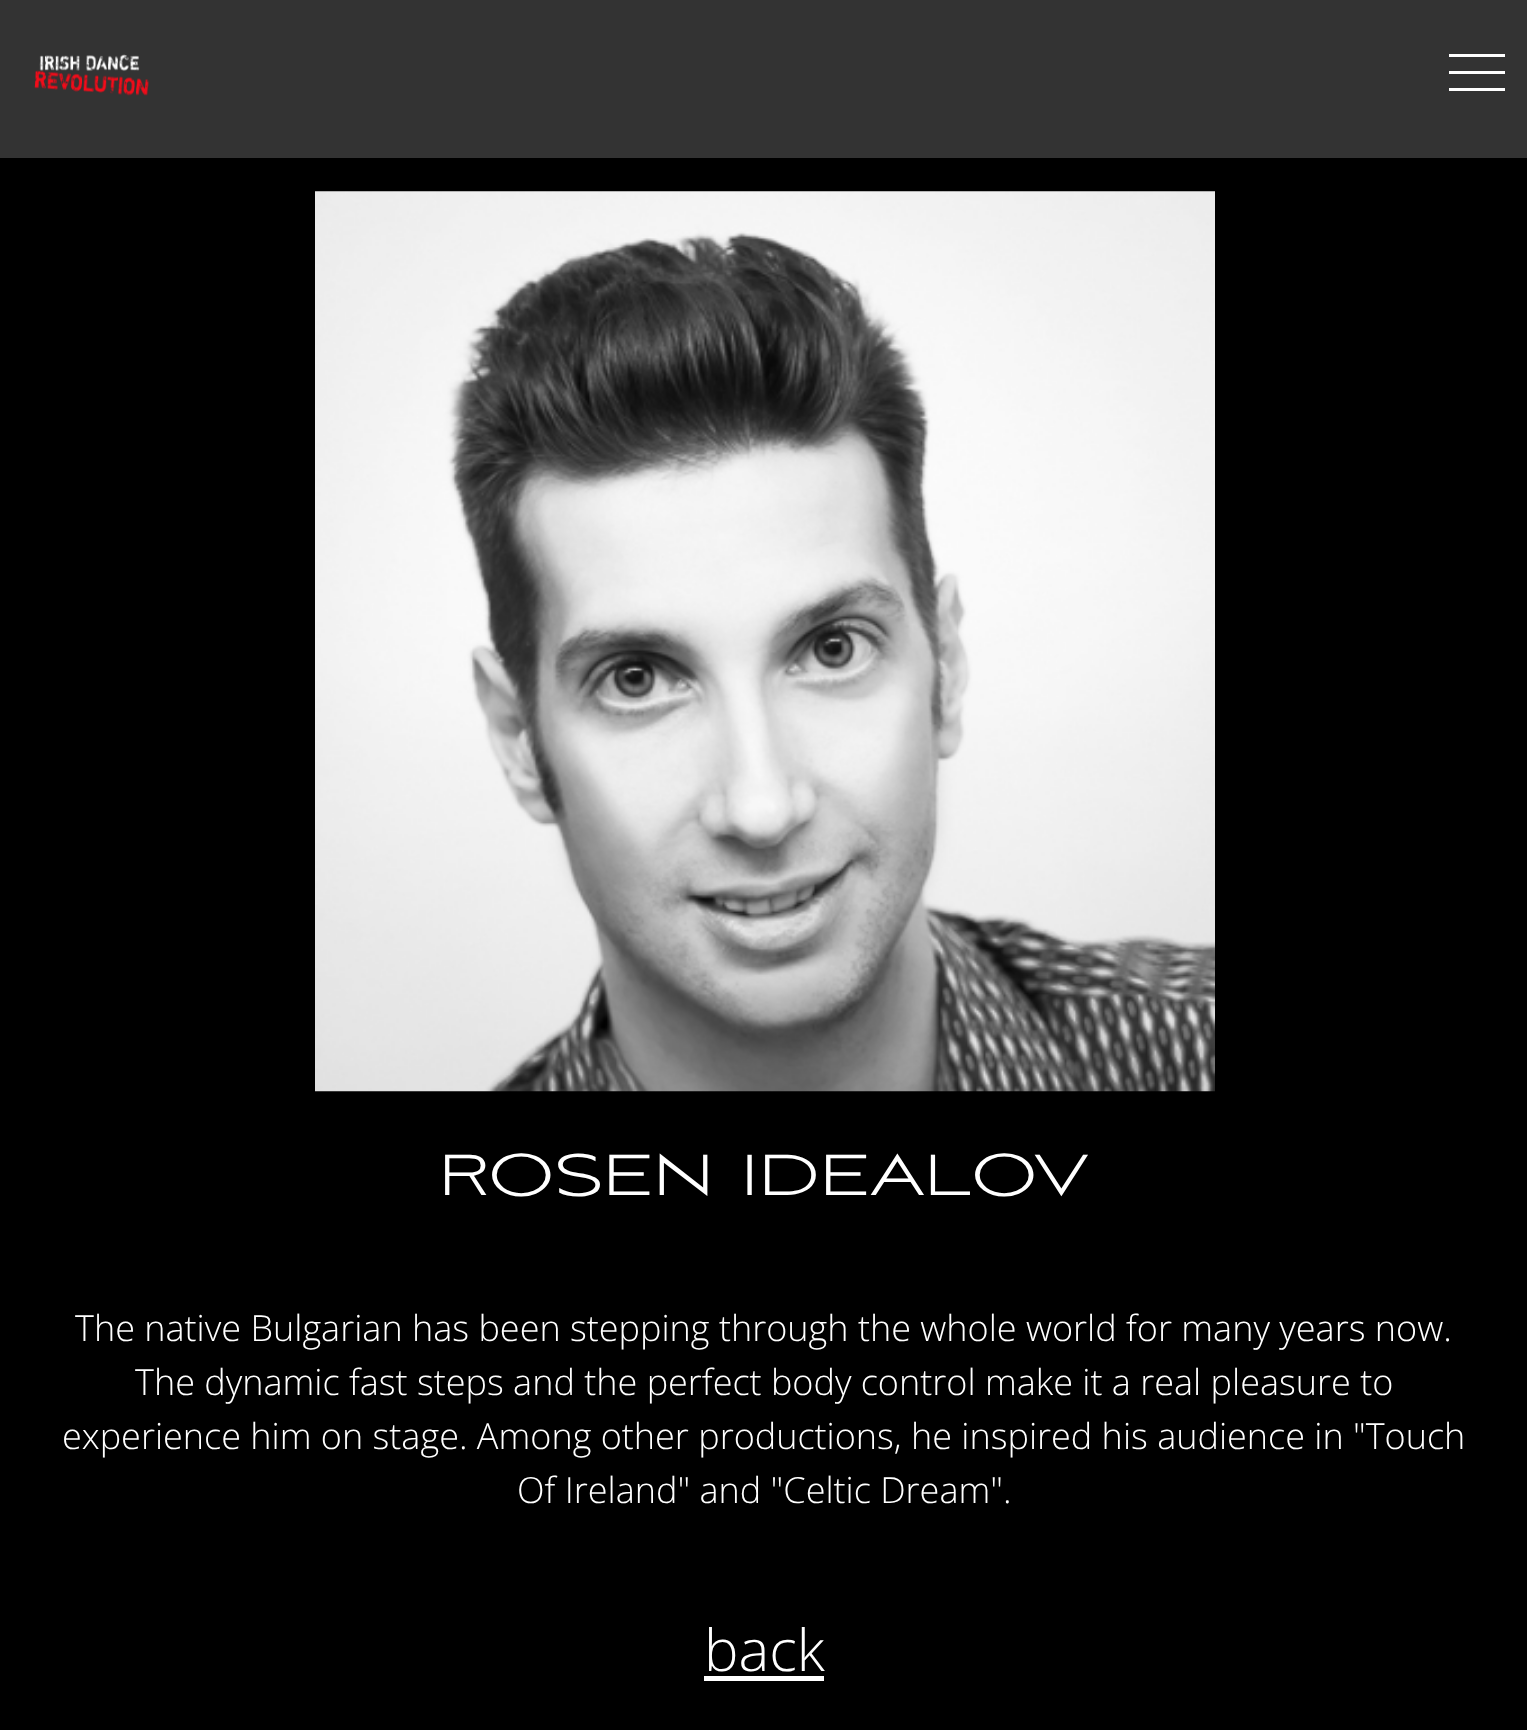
<!DOCTYPE html>
<meta charset="utf-8">
<style>body { margin: 0 } canvas { display: block }</style>
<canvas id="canvas" width="1527" height="1730"></canvas>
<img id="img1" src="images/1.png" hidden>
<img id="img2" src="images/2.png" hidden>
<script>
window.onload = function () {
    const canvas = document.getElementById('canvas');
    const context = canvas.getContext('2d');
    context.miterLimit = 4;
    context.fontKerning = 'normal';

    context.fillStyle = 'rgb(0, 0, 0)';
    context.fillRect(0, 0, 1527, 1730);
    context.fillStyle = 'rgb(51, 51, 51)';
    context.fillRect(0, 0, 1527, 158);
    context.drawImage(document.getElementById('img1'), 34, 54, 115, 42);
    context.fillStyle = 'rgb(255, 255, 255)';
    context.fillRect(1449, 54, 56, 3);
    context.fillRect(1449, 71, 56, 3);
    context.fillRect(1449, 88, 56, 3);
    context.drawImage(document.getElementById('img2'), 315, 191, 900, 901);
    context.fillRect(704, 1676, 120, 5);
    context.font = '300 72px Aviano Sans';
    context.fillText('ROSEN IDEALOV', 439, 1195);
    context.font = '300 36px Open Sans';
    context.fillText('The native Bulgarian has been stepping through the whole world for many years now.', 75, 1341);
    context.fillText('The dynamic fast steps and the perfect body control make it a real pleasure to', 135, 1395);
    context.fillText('experience him on stage. Among other productions, he inspired his audience in "Touch', 62, 1449);
    context.fillText('Of Ireland" and "Celtic Dream".', 517, 1503);
    context.font = '300 58px Open Sans';
    context.fillText('back', 704, 1671);
};
</script>
